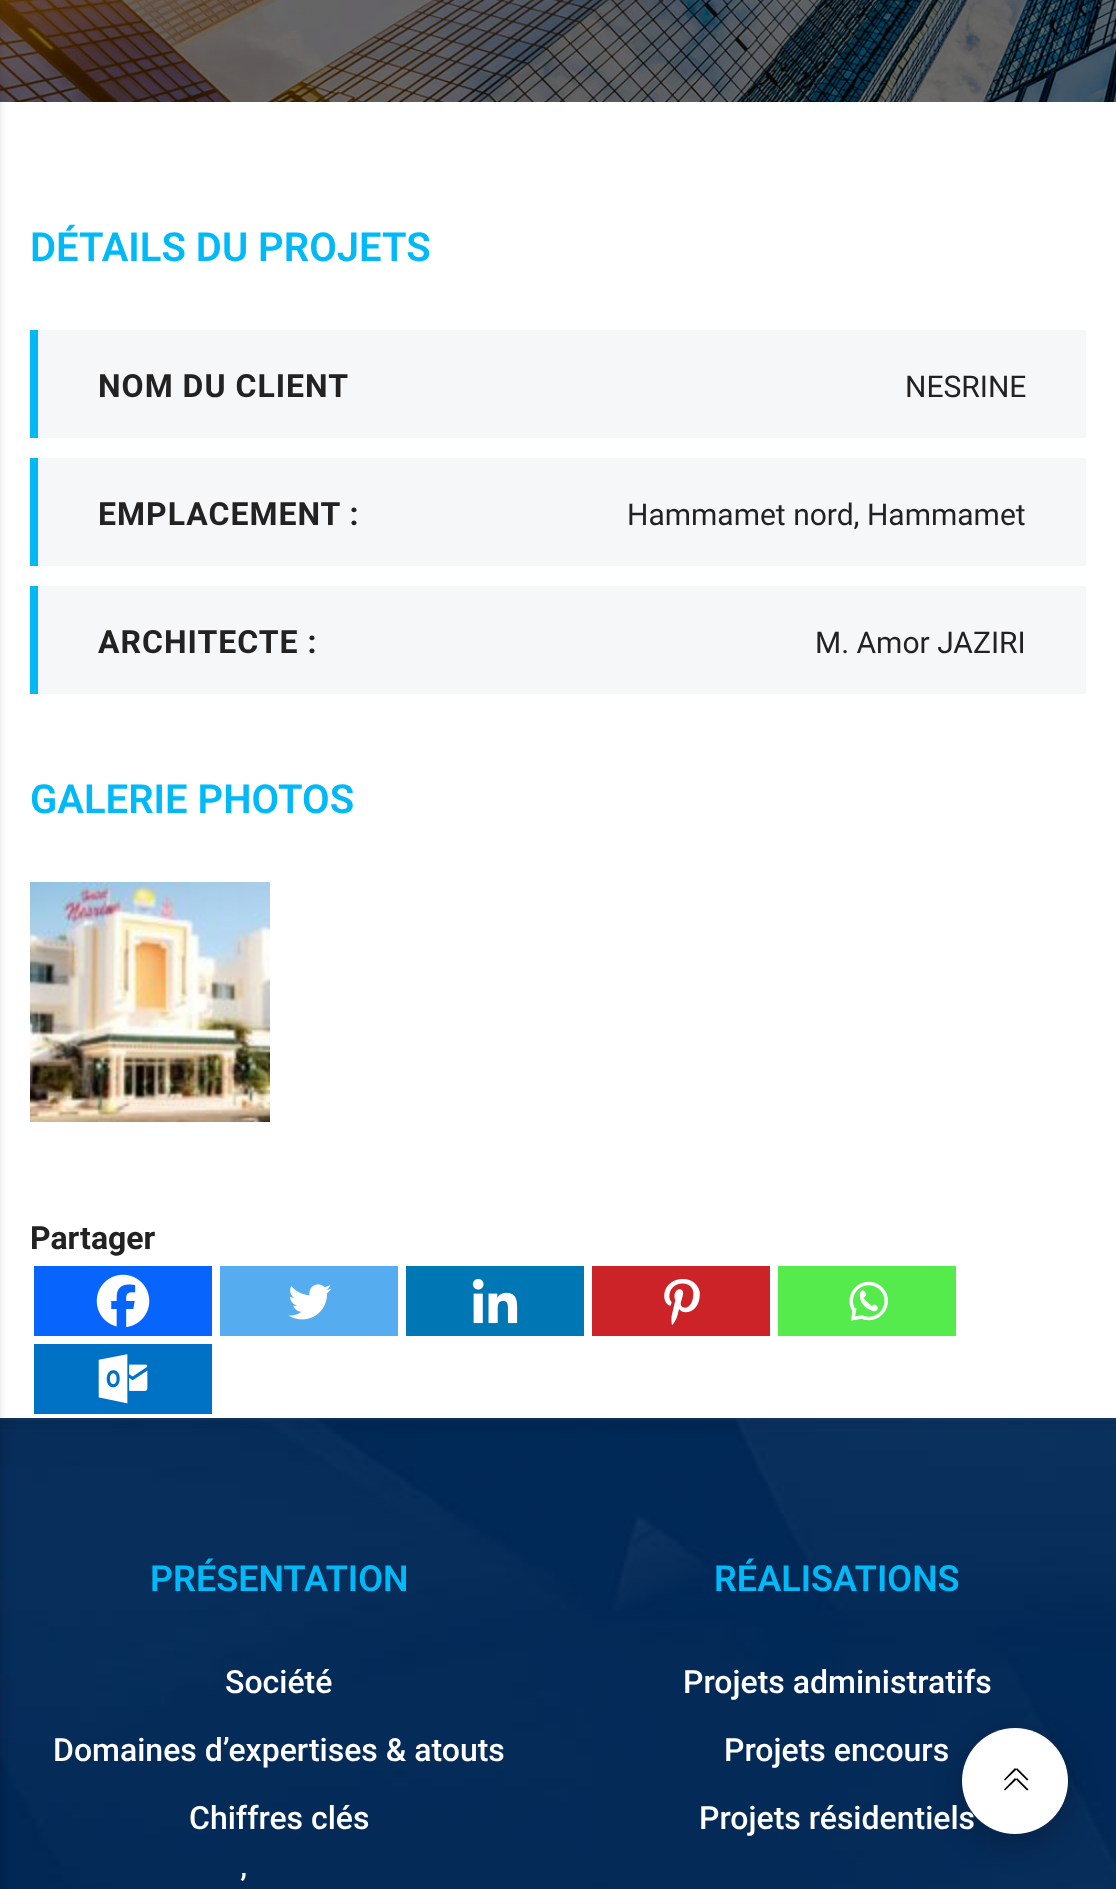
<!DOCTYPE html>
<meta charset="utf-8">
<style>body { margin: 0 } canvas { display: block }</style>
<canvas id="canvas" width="1116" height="1889"></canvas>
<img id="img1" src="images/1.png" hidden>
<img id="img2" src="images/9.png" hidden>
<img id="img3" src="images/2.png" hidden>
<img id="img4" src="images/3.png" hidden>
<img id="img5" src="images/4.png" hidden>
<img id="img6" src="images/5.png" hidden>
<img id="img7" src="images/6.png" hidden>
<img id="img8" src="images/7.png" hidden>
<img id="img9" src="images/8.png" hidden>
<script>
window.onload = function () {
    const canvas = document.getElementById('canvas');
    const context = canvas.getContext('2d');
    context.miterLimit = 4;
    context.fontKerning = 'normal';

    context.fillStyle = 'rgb(255, 255, 255)';
    context.fillRect(0, 0, 1116, 1889);
    context.drawImage(document.getElementById('img1'), 0, 0, 1116, 102);
    context.drawImage(document.getElementById('img2'), 0, 1418, 1116, 471);
    context.fillStyle = 'rgba(0, 0, 0, 0.2)';
    context.filter = 'blur(5px)';
    context.beginPath();
    context.rect(-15, 6, 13, 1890);
    context.fill();
    context.filter = 'none';
    context.fillStyle = 'rgb(246, 247, 248)';
    context.fillRect(38, 330, 1048, 108);
    context.fillStyle = 'rgb(0, 185, 246)';
    context.fillRect(30, 330, 8, 108);
    context.fillStyle = 'rgb(246, 247, 248)';
    context.fillRect(38, 458, 1048, 108);
    context.fillStyle = 'rgb(0, 185, 246)';
    context.fillRect(30, 458, 8, 108);
    context.fillStyle = 'rgb(246, 247, 248)';
    context.fillRect(38, 586, 1048, 108);
    context.fillStyle = 'rgb(0, 185, 246)';
    context.fillRect(30, 586, 8, 108);
    context.drawImage(document.getElementById('img3'), 30, 882, 240, 240);
    context.fillStyle = 'rgb(7, 101, 254)';
    context.fillRect(34, 1266, 178, 70);
    context.drawImage(document.getElementById('img4'), 96, 1274, 54, 53);
    context.fillStyle = 'rgb(85, 172, 238)';
    context.fillRect(220, 1266, 178, 70);
    context.drawImage(document.getElementById('img5'), 288, 1284, 44, 36);
    context.fillStyle = 'rgb(0, 119, 181)';
    context.fillRect(406, 1266, 178, 70);
    context.drawImage(document.getElementById('img6'), 472, 1278, 46, 46);
    context.fillStyle = 'rgb(204, 35, 41)';
    context.fillRect(592, 1266, 178, 70);
    context.drawImage(document.getElementById('img7'), 664, 1279, 36, 46);
    context.fillStyle = 'rgb(85, 235, 76)';
    context.fillRect(778, 1266, 178, 70);
    context.drawImage(document.getElementById('img8'), 849, 1281, 39, 40);
    context.fillStyle = 'rgb(0, 114, 198)';
    context.fillRect(34, 1344, 178, 70);
    context.drawImage(document.getElementById('img9'), 98, 1354, 50, 50);
    context.fillStyle = 'rgba(0, 0, 0, 0.2)';
    context.filter = 'blur(15px)';
    context.beginPath();
    context.roundRect(962, 1738, 106, 106, 53);
    context.fill();
    context.filter = 'none';
    context.fillStyle = 'rgb(255, 255, 255)';
    context.beginPath();
    context.arc(1015, 1781, 53, 0, 2 * Math.PI);
    context.fill();
    context.fillStyle = 'rgb(0, 0, 0)';
    context.beginPath();
    context.moveTo(1004, 1779.5);
    context.lineTo(1015, 1768);
    context.lineTo(1016.5, 1769.5);
    context.lineTo(1005, 1780.5);
    context.closePath();
    context.fill();
    context.beginPath();
    context.moveTo(1004, 1789.5);
    context.lineTo(1015, 1778);
    context.lineTo(1016.5, 1779.5);
    context.lineTo(1005, 1790.5);
    context.closePath();
    context.fill();
    context.beginPath();
    context.moveTo(1017, 1778);
    context.lineTo(1028.5, 1789.5);
    context.lineTo(1027, 1790.5);
    context.lineTo(1016, 1779.5);
    context.closePath();
    context.fill();
    context.beginPath();
    context.moveTo(1017, 1768);
    context.lineTo(1028.5, 1779.5);
    context.lineTo(1027, 1780.5);
    context.lineTo(1016, 1769.5);
    context.closePath();
    context.fill();
    context.font = '600 40px Roboto';
    context.fillStyle = 'rgb(0, 185, 246)';
    context.fillText('DÉTAILS DU PROJETS', 30, 261);
    context.letterSpacing = '1px';
    context.font = 'bold 32px Roboto';
    context.fillStyle = 'rgb(34, 34, 34)';
    context.fillText('NOM DU CLIENT', 98, 397);
    context.letterSpacing = '0px';
    context.font = '30px Roboto';
    context.fillText('NESRINE', 905, 397);
    context.letterSpacing = '1px';
    context.font = 'bold 32px Roboto';
    context.fillText('EMPLACEMENT :', 98, 525);
    context.letterSpacing = '0px';
    context.font = '30px Roboto';
    context.fillText('Hammamet nord, Hammamet', 627, 525);
    context.letterSpacing = '1px';
    context.font = 'bold 32px Roboto';
    context.fillText('ARCHITECTE :', 98, 653);
    context.letterSpacing = '0px';
    context.font = '30px Roboto';
    context.fillText('M. Amor JAZIRI', 815, 653);
    context.font = '600 40px Roboto';
    context.fillStyle = 'rgb(0, 185, 246)';
    context.fillText('GALERIE PHOTOS', 30, 813);
    context.font = 'bold 32px Roboto';
    context.fillStyle = 'rgb(34, 34, 34)';
    context.fillText('Partager', 30, 1249);
    context.font = '600 36px Roboto';
    context.fillStyle = 'rgb(0, 185, 246)';
    context.fillText('PRÉSENTATION', 150, 1591);
    context.font = '500 32px Roboto';
    context.fillStyle = 'rgb(255, 255, 255)';
    context.fillText('Société', 225, 1693);
    context.fillText('Domaines d’expertises & atouts', 53, 1761);
    context.fillText('Chiffres clés', 189, 1829);
    context.fillText('’', 240, 1897);
    context.font = '600 36px Roboto';
    context.fillStyle = 'rgb(0, 185, 246)';
    context.fillText('RÉALISATIONS', 714, 1591);
    context.font = '500 32px Roboto';
    context.fillStyle = 'rgb(255, 255, 255)';
    context.fillText('Projets administratifs', 683, 1693);
    context.fillText('Projets encours', 724, 1761);
    context.fillText('Projets résidentiels', 699, 1829);
};
</script>
